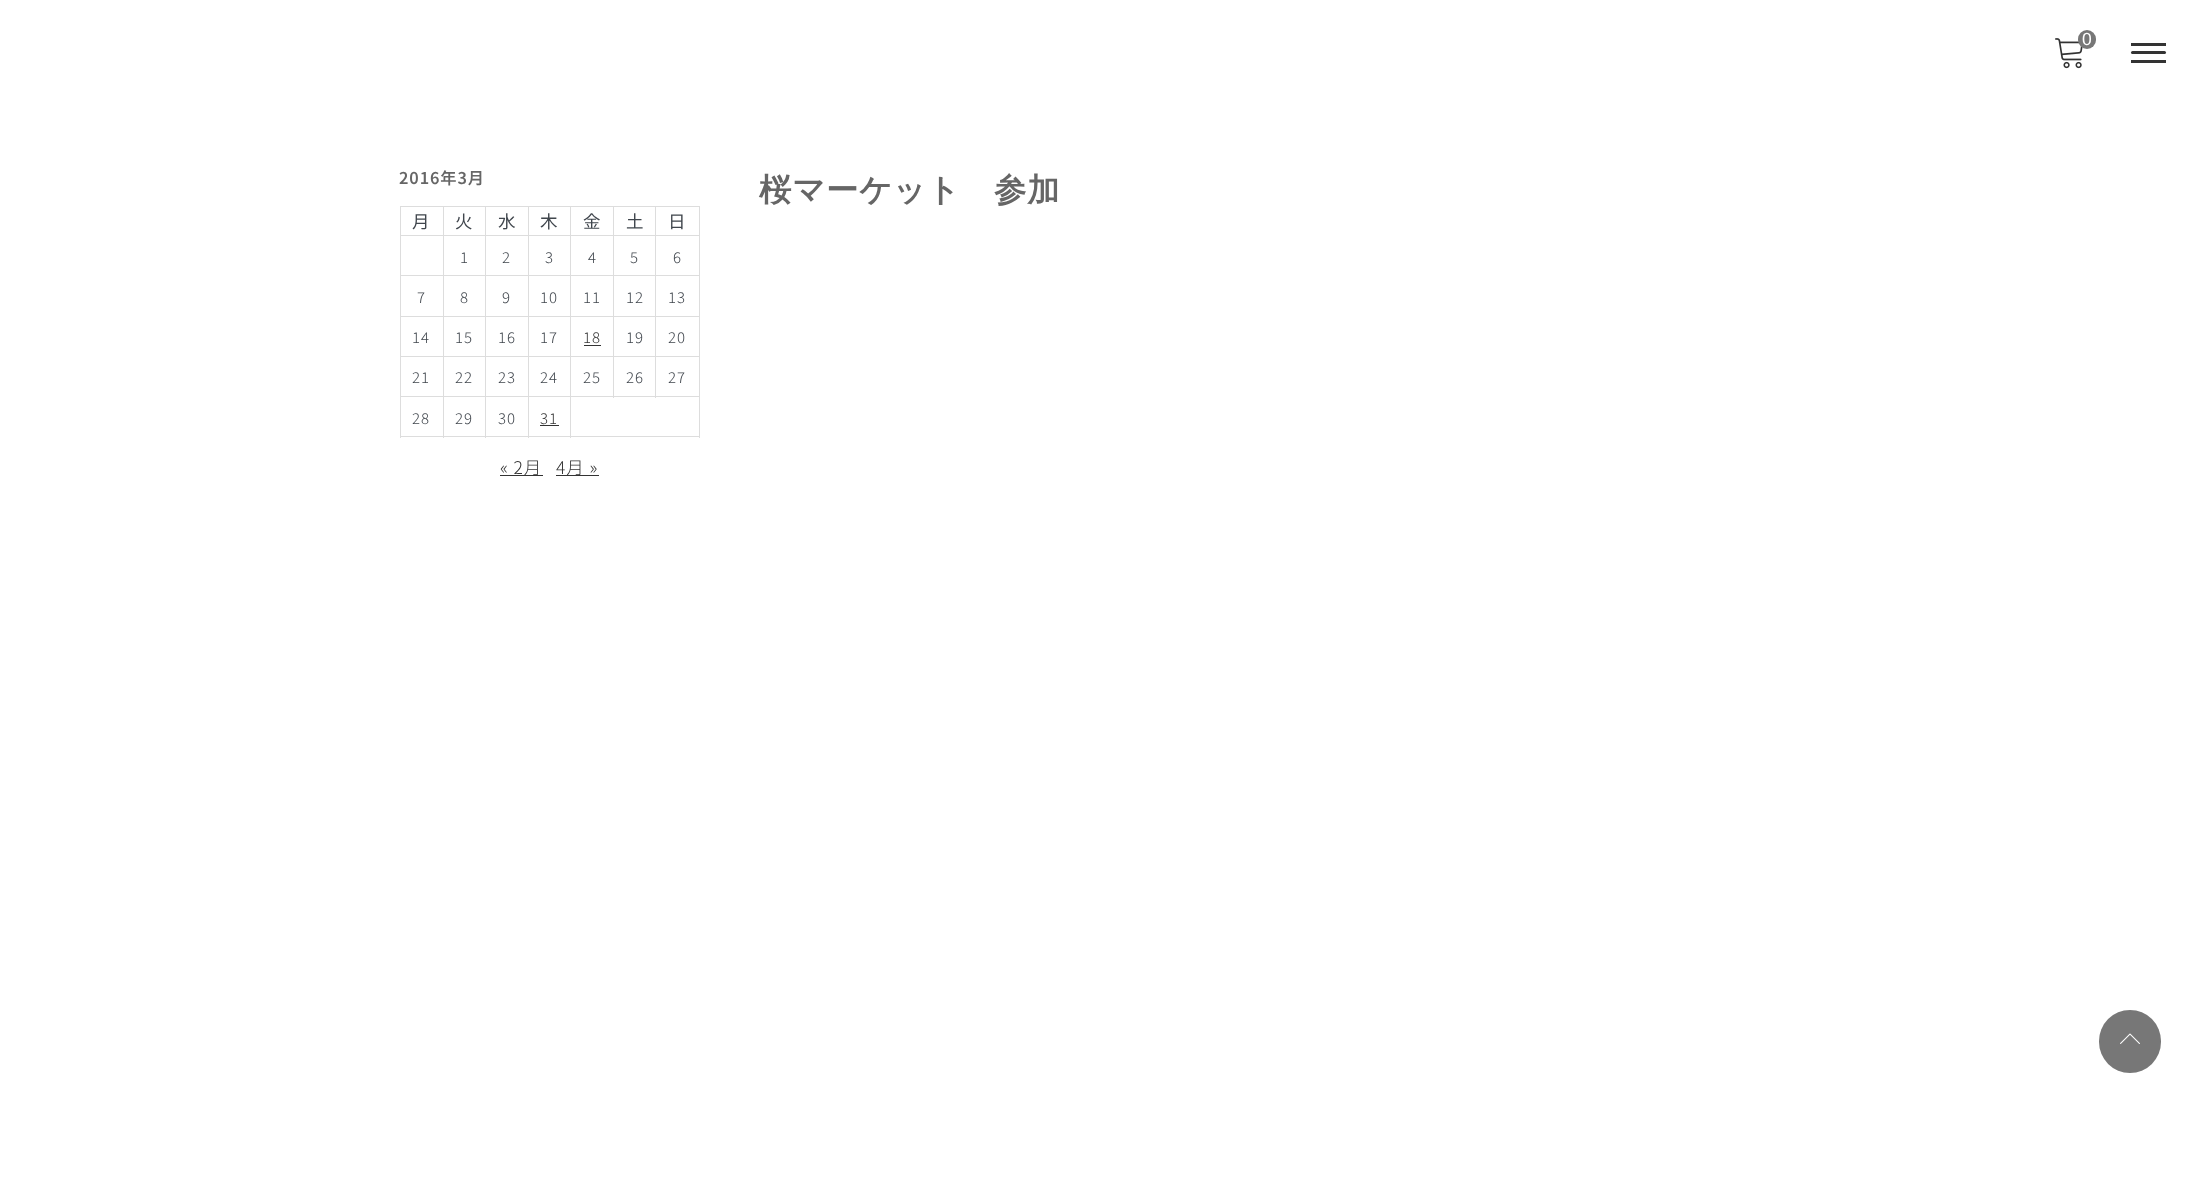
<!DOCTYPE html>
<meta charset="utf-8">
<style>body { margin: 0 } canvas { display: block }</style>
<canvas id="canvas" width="2198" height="1178"></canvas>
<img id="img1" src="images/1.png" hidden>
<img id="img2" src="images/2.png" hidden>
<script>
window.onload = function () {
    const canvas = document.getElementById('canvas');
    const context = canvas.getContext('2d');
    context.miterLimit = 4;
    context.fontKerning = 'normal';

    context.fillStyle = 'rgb(255, 255, 255)';
    context.fillRect(0, 0, 2198, 1178);
    context.drawImage(document.getElementById('img1'), 2055, 38, 28, 31);
    context.fillStyle = 'rgb(119, 119, 119)';
    context.beginPath();
    context.roundRect(2078, 30, 18, 19, 9);
    context.fill();
    context.fillStyle = 'rgb(51, 51, 51)';
    context.fillRect(2131, 43, 35, 3);
    context.beginPath();
    context.roundRect(2131, 51, 35, 3, 1.5);
    context.fill();
    context.fillRect(2131, 60, 35, 3);
    context.fillStyle = 'rgb(221, 221, 221)';
    context.fillRect(655, 206, 45, 1);
    context.fillRect(655, 235, 45, 1);
    context.fillRect(655, 275, 45, 1);
    context.fillRect(655, 316, 45, 1);
    context.fillRect(655, 356, 45, 1);
    context.fillRect(570, 396, 130, 1);
    context.fillRect(655, 356, 1, 42);
    context.fillRect(613, 356, 43, 1);
    context.fillRect(655, 316, 1, 42);
    context.fillRect(613, 316, 43, 1);
    context.fillRect(655, 275, 1, 43);
    context.fillRect(613, 275, 43, 1);
    context.fillRect(655, 235, 1, 41);
    context.fillRect(613, 235, 43, 1);
    context.fillRect(655, 206, 1, 30);
    context.fillRect(613, 206, 43, 1);
    context.fillRect(613, 356, 1, 42);
    context.fillRect(570, 356, 44, 1);
    context.fillRect(613, 316, 1, 42);
    context.fillRect(570, 316, 44, 1);
    context.fillRect(613, 275, 1, 43);
    context.fillRect(570, 275, 44, 1);
    context.fillRect(613, 235, 1, 41);
    context.fillRect(570, 235, 44, 1);
    context.fillRect(613, 206, 1, 30);
    context.fillRect(570, 206, 44, 1);
    context.fillRect(699, 396, 1, 42);
    context.fillRect(570, 436, 130, 1);
    context.fillRect(570, 396, 1, 42);
    context.fillRect(528, 396, 43, 1);
    context.fillRect(570, 356, 1, 42);
    context.fillRect(528, 356, 43, 1);
    context.fillRect(570, 316, 1, 42);
    context.fillRect(528, 316, 43, 1);
    context.fillRect(570, 275, 1, 43);
    context.fillRect(528, 275, 43, 1);
    context.fillRect(570, 235, 1, 41);
    context.fillRect(528, 235, 43, 1);
    context.fillRect(570, 206, 1, 30);
    context.fillRect(528, 206, 43, 1);
    context.fillRect(528, 436, 43, 1);
    context.fillRect(528, 396, 1, 42);
    context.fillRect(485, 396, 44, 1);
    context.fillRect(528, 356, 1, 42);
    context.fillRect(485, 356, 44, 1);
    context.fillRect(528, 316, 1, 42);
    context.fillRect(485, 316, 44, 1);
    context.fillRect(528, 275, 1, 43);
    context.fillRect(485, 275, 44, 1);
    context.fillRect(528, 235, 1, 41);
    context.fillRect(485, 235, 44, 1);
    context.fillRect(528, 206, 1, 30);
    context.fillRect(485, 206, 44, 1);
    context.fillRect(485, 436, 44, 1);
    context.fillRect(485, 396, 1, 42);
    context.fillRect(443, 396, 43, 1);
    context.fillRect(485, 356, 1, 42);
    context.fillRect(443, 356, 43, 1);
    context.fillRect(485, 316, 1, 42);
    context.fillRect(443, 316, 43, 1);
    context.fillRect(485, 275, 1, 43);
    context.fillRect(443, 275, 43, 1);
    context.fillRect(485, 235, 1, 41);
    context.fillRect(443, 235, 43, 1);
    context.fillRect(485, 206, 1, 30);
    context.fillRect(443, 206, 43, 1);
    context.fillRect(443, 436, 43, 1);
    context.fillRect(443, 396, 1, 42);
    context.fillRect(400, 396, 44, 1);
    context.fillRect(443, 356, 1, 42);
    context.fillRect(400, 356, 44, 1);
    context.fillRect(443, 316, 1, 42);
    context.fillRect(400, 316, 44, 1);
    context.fillRect(443, 275, 1, 43);
    context.fillRect(400, 275, 44, 1);
    context.fillRect(443, 235, 1, 41);
    context.fillRect(400, 235, 44, 1);
    context.fillRect(443, 206, 1, 30);
    context.fillRect(400, 206, 44, 1);
    context.fillRect(400, 436, 44, 1);
    context.fillRect(400, 396, 1, 42);
    context.fillRect(400, 356, 1, 42);
    context.fillRect(400, 316, 1, 42);
    context.fillRect(400, 275, 1, 43);
    context.fillRect(400, 235, 1, 41);
    context.fillRect(400, 206, 1, 30);
    context.fillRect(699, 356, 1, 42);
    context.fillRect(699, 316, 1, 42);
    context.fillRect(699, 275, 1, 43);
    context.fillRect(699, 235, 1, 41);
    context.fillRect(699, 206, 1, 30);
    context.fillStyle = 'rgb(51, 51, 51)';
    context.fillRect(584, 345, 17, 1);
    context.fillRect(540, 425, 19, 1);
    context.fillRect(500, 475, 43, 1);
    context.fillRect(556, 475, 43, 1);
    context.fillStyle = 'rgb(119, 119, 119)';
    context.beginPath();
    context.roundRect(2099, 1010, 62, 63, 31);
    context.fill();
    context.drawImage(document.getElementById('img2'), 2120, 1033, 20, 11);
    context.letterSpacing = '0.9px';
    context.font = '17.5px Liberation Sans';
    context.fillStyle = 'rgb(255, 255, 255)';
    context.fillText('0', 2082, 45);
    context.font = '600 16.25px Noto Sans JP';
    context.fillStyle = 'rgb(102, 102, 102)';
    context.fillText('2016年3月', 399, 184);
    context.font = '17.5px Noto Sans JP';
    context.fillStyle = 'rgb(64, 70, 77)';
    context.fillText('月', 412, 228);
    context.fillText('火', 455, 228);
    context.fillText('水', 498, 228);
    context.fillText('木', 540, 228);
    context.fillText('金', 583, 228);
    context.fillText('土', 626, 228);
    context.fillText('日', 668, 228);
    context.font = '300 15px Noto Sans JP';
    context.fillText('1', 460, 263);
    context.fillText('2', 502, 263);
    context.fillText('3', 545, 263);
    context.fillText('4', 588, 263);
    context.fillText('5', 630, 263);
    context.fillText('6', 673, 263);
    context.fillText('7', 417, 303);
    context.fillText('8', 460, 303);
    context.fillText('9', 502, 303);
    context.fillText('10', 540, 303);
    context.fillText('11', 583, 303);
    context.fillText('12', 626, 303);
    context.fillText('13', 668, 303);
    context.fillText('14', 412, 343);
    context.fillText('15', 455, 343);
    context.fillText('16', 498, 343);
    context.fillText('17', 540, 343);
    context.fillStyle = 'rgb(51, 51, 51)';
    context.fillText('18', 583, 343);
    context.fillStyle = 'rgb(64, 70, 77)';
    context.fillText('19', 626, 343);
    context.fillText('20', 668, 343);
    context.fillText('21', 412, 383);
    context.fillText('22', 455, 383);
    context.fillText('23', 498, 383);
    context.fillText('24', 540, 383);
    context.fillText('25', 583, 383);
    context.fillText('26', 626, 383);
    context.fillText('27', 668, 383);
    context.fillText('28', 412, 424);
    context.fillText('29', 455, 424);
    context.fillText('30', 498, 424);
    context.fillStyle = 'rgb(51, 51, 51)';
    context.fillText('31', 540, 424);
    context.font = '300 17.5px Noto Sans JP';
    context.fillText('« 2月', 500, 474);
    context.fillText('4月 »', 556, 474);
    context.font = 'bold 32.25px WenQuanYi Zen Hei';
    context.fillStyle = 'rgb(102, 102, 102)';
    context.fillText('桜マーケット　参加', 759, 201);
};
</script>
